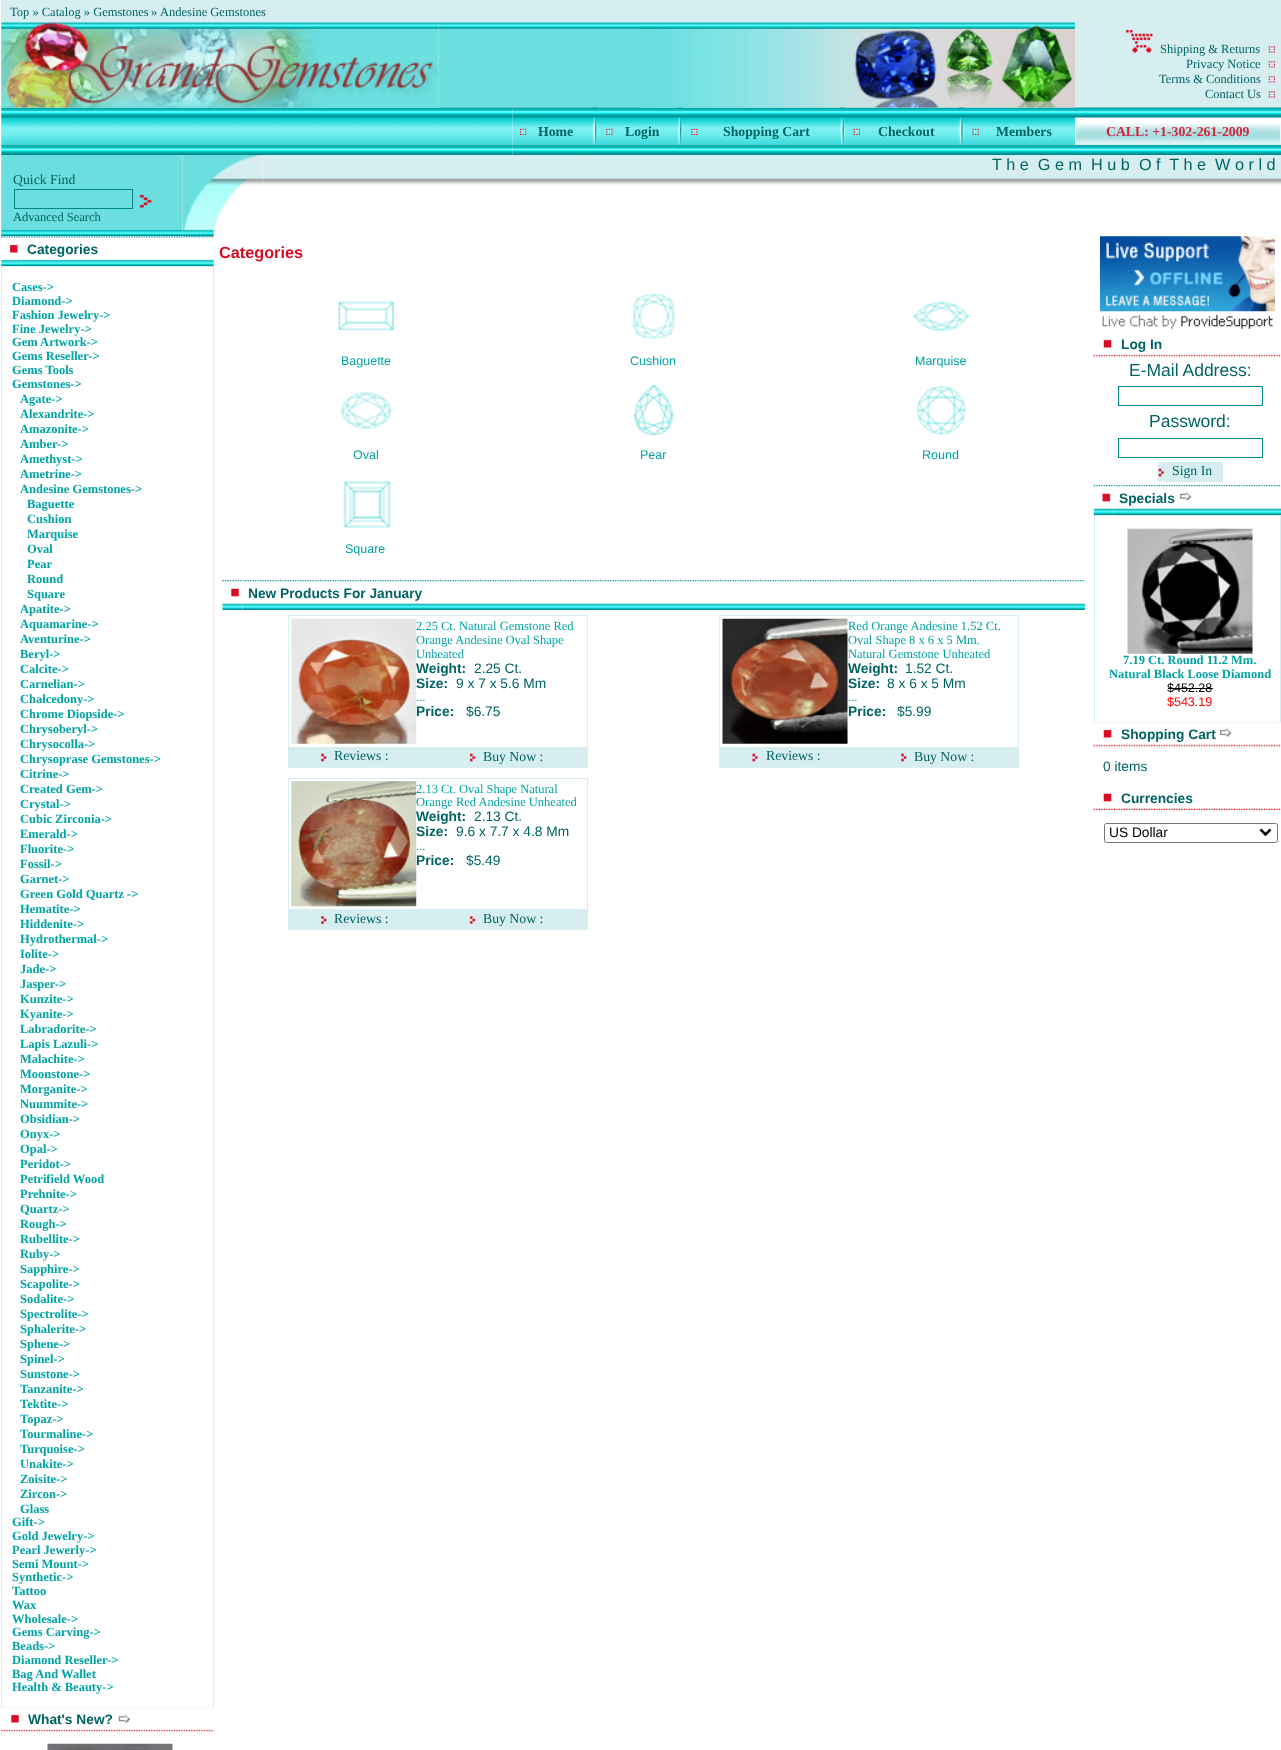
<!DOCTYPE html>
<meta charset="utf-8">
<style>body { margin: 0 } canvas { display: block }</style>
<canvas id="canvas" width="1281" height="1750"></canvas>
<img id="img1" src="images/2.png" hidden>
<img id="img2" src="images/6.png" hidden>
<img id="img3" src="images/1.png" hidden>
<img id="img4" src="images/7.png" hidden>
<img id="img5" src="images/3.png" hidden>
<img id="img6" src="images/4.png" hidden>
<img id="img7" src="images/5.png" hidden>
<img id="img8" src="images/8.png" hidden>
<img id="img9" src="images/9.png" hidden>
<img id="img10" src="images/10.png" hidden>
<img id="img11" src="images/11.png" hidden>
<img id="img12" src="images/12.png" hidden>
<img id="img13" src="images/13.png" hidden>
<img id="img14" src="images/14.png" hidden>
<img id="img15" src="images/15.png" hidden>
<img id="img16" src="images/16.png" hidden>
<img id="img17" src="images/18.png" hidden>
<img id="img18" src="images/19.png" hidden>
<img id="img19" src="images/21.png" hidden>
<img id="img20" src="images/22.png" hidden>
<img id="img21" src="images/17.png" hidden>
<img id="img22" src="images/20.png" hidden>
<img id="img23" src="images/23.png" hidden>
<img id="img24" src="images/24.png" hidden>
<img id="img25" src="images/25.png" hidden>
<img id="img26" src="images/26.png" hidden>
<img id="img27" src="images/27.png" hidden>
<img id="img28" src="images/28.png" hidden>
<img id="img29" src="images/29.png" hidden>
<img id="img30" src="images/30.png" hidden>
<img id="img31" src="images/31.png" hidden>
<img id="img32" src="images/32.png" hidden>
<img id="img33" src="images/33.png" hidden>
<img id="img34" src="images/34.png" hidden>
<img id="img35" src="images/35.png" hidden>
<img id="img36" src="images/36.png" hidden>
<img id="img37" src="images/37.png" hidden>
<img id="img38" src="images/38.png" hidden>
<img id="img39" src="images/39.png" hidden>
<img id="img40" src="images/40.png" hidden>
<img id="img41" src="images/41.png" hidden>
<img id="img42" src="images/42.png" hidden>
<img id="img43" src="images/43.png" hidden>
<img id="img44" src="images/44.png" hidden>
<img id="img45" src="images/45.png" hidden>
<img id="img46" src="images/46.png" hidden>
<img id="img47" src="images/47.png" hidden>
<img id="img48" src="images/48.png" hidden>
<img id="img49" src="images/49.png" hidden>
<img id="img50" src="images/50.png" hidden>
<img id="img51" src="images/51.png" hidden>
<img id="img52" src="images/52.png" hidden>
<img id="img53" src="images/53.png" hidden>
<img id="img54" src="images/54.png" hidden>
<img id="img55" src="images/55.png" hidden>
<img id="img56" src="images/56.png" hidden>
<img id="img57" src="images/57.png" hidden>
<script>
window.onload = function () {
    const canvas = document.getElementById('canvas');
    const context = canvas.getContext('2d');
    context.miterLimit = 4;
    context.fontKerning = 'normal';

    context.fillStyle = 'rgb(255, 255, 255)';
    context.fillRect(0, 0, 1281, 1750);
    context.fillStyle = 'rgb(214, 238, 240)';
    context.fillRect(1, 0, 1280, 23);
    context.drawImage(document.getElementById('img1'), 438, 22, 202, 86);
    context.drawImage(document.getElementById('img2'), 1, 107, 512, 48);
    context.drawImage(document.getElementById('img3'), 1, 22, 438, 86);
    context.drawImage(document.getElementById('img4'), 512, 107, 563, 48);
    context.drawImage(document.getElementById('img5'), 640, 22, 435, 86);
    context.fillRect(1075, 23, 206, 85);
    context.drawImage(document.getElementById('img6'), 1126, 30, 27, 23);
    context.drawImage(document.getElementById('img7'), 1268, 46, 7, 7);
    context.drawImage(document.getElementById('img7'), 1268, 61, 7, 7);
    context.drawImage(document.getElementById('img7'), 1268, 76, 7, 7);
    context.drawImage(document.getElementById('img7'), 1268, 91, 7, 7);
    context.drawImage(document.getElementById('img8'), 520, 128, 7, 7);
    context.drawImage(document.getElementById('img9'), 592, 107, 6, 43);
    context.drawImage(document.getElementById('img10'), 606, 128, 7, 7);
    context.drawImage(document.getElementById('img11'), 677, 107, 6, 43);
    context.drawImage(document.getElementById('img10'), 691, 128, 7, 7);
    context.drawImage(document.getElementById('img12'), 840, 107, 5, 43);
    context.drawImage(document.getElementById('img13'), 853, 128, 7, 7);
    context.drawImage(document.getElementById('img14'), 958, 107, 6, 43);
    context.drawImage(document.getElementById('img15'), 972, 128, 7, 7);
    context.drawImage(document.getElementById('img16'), 1075, 107, 206, 48);
    context.drawImage(document.getElementById('img17'), 262, 155, 1019, 30);
    context.drawImage(document.getElementById('img18'), 1, 155, 182, 82);
    context.drawImage(document.getElementById('img19'), 1, 236, 21, 30);
    context.drawImage(document.getElementById('img20'), 21, 236, 193, 30);
    context.drawImage(document.getElementById('img21'), 182, 155, 81, 82);
    context.strokeStyle = 'rgb(0, 135, 137)';
    context.strokeRect(14.5, 189.5, 118, 19);
    context.drawImage(document.getElementById('img22'), 139, 194, 13, 14);
    context.strokeStyle = 'rgb(214, 238, 240)';
    context.strokeRect(1.5, 266.5, 212, 1441);
    context.drawImage(document.getElementById('img23'), 1, 1707, 22, 25);
    context.drawImage(document.getElementById('img24'), 22, 1707, 192, 25);
    context.drawImage(document.getElementById('img25'), 118, 1714, 13, 9);
    context.drawImage(document.getElementById('img26'), 47, 1743, 126, 7);
    context.drawImage(document.getElementById('img27'), 337, 301, 57, 30);
    context.drawImage(document.getElementById('img28'), 632, 293, 43, 46);
    context.drawImage(document.getElementById('img29'), 913, 301, 57, 31);
    context.drawImage(document.getElementById('img30'), 341, 392, 51, 37);
    context.drawImage(document.getElementById('img31'), 633, 384, 41, 52);
    context.drawImage(document.getElementById('img32'), 916, 385, 50, 51);
    context.drawImage(document.getElementById('img33'), 343, 481, 48, 47);
    context.drawImage(document.getElementById('img34'), 222, 580, 21, 30);
    context.drawImage(document.getElementById('img35'), 242, 580, 843, 30);
    context.strokeRect(288.5, 615.5, 299, 132);
    context.drawImage(document.getElementById('img36'), 291, 618, 126, 126);
    context.fillRect(288, 748, 300, 20);
    context.drawImage(document.getElementById('img37'), 321, 753, 6, 9);
    context.drawImage(document.getElementById('img38'), 469, 753, 7, 9);
    context.strokeRect(719.5, 615.5, 299, 132);
    context.drawImage(document.getElementById('img39'), 722, 618, 126, 126);
    context.fillRect(719, 748, 300, 20);
    context.drawImage(document.getElementById('img40'), 752, 753, 6, 9);
    context.drawImage(document.getElementById('img37'), 901, 753, 6, 9);
    context.strokeRect(288.5, 778.5, 299, 131);
    context.drawImage(document.getElementById('img41'), 291, 781, 126, 126);
    context.fillRect(288, 910, 300, 20);
    context.drawImage(document.getElementById('img42'), 321, 916, 6, 8);
    context.drawImage(document.getElementById('img43'), 469, 916, 7, 8);
    context.drawImage(document.getElementById('img44'), 1100, 236, 175, 76);
    context.drawImage(document.getElementById('img45'), 1102, 314, 171, 15);
    context.drawImage(document.getElementById('img46'), 1093, 339, 22, 18);
    context.drawImage(document.getElementById('img47'), 1115, 354, 166, 3);
    context.strokeStyle = 'rgb(0, 135, 137)';
    context.strokeRect(1118.5, 386.5, 144, 19);
    context.strokeRect(1118.5, 438.5, 144, 19);
    context.drawImage(document.getElementById('img48'), 1157, 462, 8, 20);
    context.fillRect(1165, 462, 58, 20);
    context.drawImage(document.getElementById('img49'), 1093, 485, 21, 30);
    context.drawImage(document.getElementById('img50'), 1113, 485, 168, 30);
    context.drawImage(document.getElementById('img51'), 1179, 492, 13, 9);
    context.strokeStyle = 'rgb(214, 238, 240)';
    context.strokeRect(1094.5, 515.5, 186, 207);
    context.drawImage(document.getElementById('img52'), 1127, 528, 126, 126);
    context.fillStyle = 'rgb(0, 0, 0)';
    context.fillRect(1168, 688, 45, 1);
    context.drawImage(document.getElementById('img53'), 1093, 722, 22, 25);
    context.drawImage(document.getElementById('img54'), 1115, 722, 166, 25);
    context.drawImage(document.getElementById('img55'), 1219, 728, 13, 9);
    context.drawImage(document.getElementById('img56'), 1093, 793, 22, 17);
    context.drawImage(document.getElementById('img57'), 1115, 808, 166, 2);
    context.beginPath();
    context.roundRect(1104.5, 823.5, 173, 19, 2);
    context.strokeStyle = 'rgb(118, 118, 118)';
    context.stroke();
    context.beginPath();
    context.moveTo(1260.5, 829.5);
    context.lineTo(1265.5, 834.5);
    context.lineTo(1270.5, 829.5);
    context.strokeStyle = 'rgb(0, 0, 0)';
    context.lineWidth = 2.5;
    context.stroke();
    context.font = '12.5px Liberation Serif';
    context.fillStyle = 'rgb(0, 99, 100)';
    context.fillText('Top » Catalog » Gemstones', 10, 16);
    context.fillText('»', 151, 16);
    context.fillText('Andesine Gemstones', 160, 16);
    context.fillText('Shipping & Returns', 1160, 53);
    context.fillText('Privacy Notice', 1186, 68);
    context.fillText('Terms & Conditions', 1159, 83);
    context.fillText('Contact Us', 1205, 98);
    context.font = 'bold 13.75px Liberation Serif';
    context.fillText('Home', 538, 136);
    context.fillText('Login', 625, 136);
    context.fillText('Shopping Cart', 723, 136);
    context.fillText('Checkout', 878, 136);
    context.fillText('Members', 996, 136);
    context.fillStyle = 'rgb(209, 38, 59)';
    context.fillText('CALL: +1-302-261-2009', 1106, 136);
    context.font = '16.25px Liberation Sans';
    context.fillStyle = 'rgb(0, 99, 100)';
    context.fillText('T h e  G e m  H u b  O f  T h e  W o r l d', 992, 170);
    context.font = '13.75px Liberation Serif';
    context.fillText('Quick Find', 13, 184);
    context.font = '12.5px Liberation Serif';
    context.fillText('Advanced Search', 13, 221);
    context.font = 'bold 13.75px Liberation Sans';
    context.fillText('Categories', 27, 254);
    context.font = 'bold 12.5px Liberation Serif';
    context.fillStyle = 'rgb(2, 163, 165)';
    context.fillText('Cases->', 12, 291);
    context.fillText('Diamond->', 12, 305);
    context.fillText('Fashion Jewelry->', 12, 319);
    context.fillText('Fine Jewelry->', 12, 333);
    context.fillText('Gem Artwork->', 12, 346);
    context.fillText('Gems Reseller->', 12, 360);
    context.fillText('Gems Tools', 12, 374);
    context.fillText('Gemstones->', 12, 388);
    context.fillText('Agate->', 20, 403);
    context.fillText('Alexandrite->', 20, 418);
    context.fillText('Amazonite->', 20, 433);
    context.fillText('Amber->', 20, 448);
    context.fillText('Amethyst->', 20, 463);
    context.fillText('Ametrine->', 20, 478);
    context.fillText('Andesine Gemstones->', 20, 493);
    context.fillText('Baguette', 27, 508);
    context.fillText('Cushion', 27, 523);
    context.fillText('Marquise', 27, 538);
    context.fillText('Oval', 27, 553);
    context.fillText('Pear', 27, 568);
    context.fillText('Round', 27, 583);
    context.fillText('Square', 27, 598);
    context.fillText('Apatite->', 20, 613);
    context.fillText('Aquamarine->', 20, 628);
    context.fillText('Aventurine->', 20, 643);
    context.fillText('Beryl->', 20, 658);
    context.fillText('Calcite->', 20, 673);
    context.fillText('Carnelian->', 20, 688);
    context.fillText('Chalcedony->', 20, 703);
    context.fillText('Chrome Diopside->', 20, 718);
    context.fillText('Chrysoberyl->', 20, 733);
    context.fillText('Chrysocolla->', 20, 748);
    context.fillText('Chrysoprase Gemstones->', 20, 763);
    context.fillText('Citrine->', 20, 778);
    context.fillText('Created Gem->', 20, 793);
    context.fillText('Crystal->', 20, 808);
    context.fillText('Cubic Zirconia->', 20, 823);
    context.fillText('Emerald->', 20, 838);
    context.fillText('Fluorite->', 20, 853);
    context.fillText('Fossil->', 20, 868);
    context.fillText('Garnet->', 20, 883);
    context.fillText('Green Gold Quartz ->', 20, 898);
    context.fillText('Hematite->', 20, 913);
    context.fillText('Hiddenite->', 20, 928);
    context.fillText('Hydrothermal->', 20, 943);
    context.fillText('Iolite->', 20, 958);
    context.fillText('Jade->', 20, 973);
    context.fillText('Jasper->', 20, 988);
    context.fillText('Kunzite->', 20, 1003);
    context.fillText('Kyanite->', 20, 1018);
    context.fillText('Labradorite->', 20, 1033);
    context.fillText('Lapis Lazuli->', 20, 1048);
    context.fillText('Malachite->', 20, 1063);
    context.fillText('Moonstone->', 20, 1078);
    context.fillText('Morganite->', 20, 1093);
    context.fillText('Nuummite->', 20, 1108);
    context.fillText('Obsidian->', 20, 1123);
    context.fillText('Onyx->', 20, 1138);
    context.fillText('Opal->', 20, 1153);
    context.fillText('Peridot->', 20, 1168);
    context.fillText('Petrifield Wood', 20, 1183);
    context.fillText('Prehnite->', 20, 1198);
    context.fillText('Quartz->', 20, 1213);
    context.fillText('Rough->', 20, 1228);
    context.fillText('Rubellite->', 20, 1243);
    context.fillText('Ruby->', 20, 1258);
    context.fillText('Sapphire->', 20, 1273);
    context.fillText('Scapolite->', 20, 1288);
    context.fillText('Sodalite->', 20, 1303);
    context.fillText('Spectrolite->', 20, 1318);
    context.fillText('Sphalerite->', 20, 1333);
    context.fillText('Sphene->', 20, 1348);
    context.fillText('Spinel->', 20, 1363);
    context.fillText('Sunstone->', 20, 1378);
    context.fillText('Tanzanite->', 20, 1393);
    context.fillText('Tektite->', 20, 1408);
    context.fillText('Topaz->', 20, 1423);
    context.fillText('Tourmaline->', 20, 1438);
    context.fillText('Turquoise->', 20, 1453);
    context.fillText('Unakite->', 20, 1468);
    context.fillText('Zoisite->', 20, 1483);
    context.fillText('Zircon->', 20, 1498);
    context.fillText('Glass', 20, 1513);
    context.fillText('Gift->', 12, 1526);
    context.fillText('Gold Jewelry->', 12, 1540);
    context.fillText('Pearl Jewerly->', 12, 1554);
    context.fillText('Semi Mount->', 12, 1568);
    context.fillText('Synthetic->', 12, 1581);
    context.fillText('Tattoo', 12, 1595);
    context.fillText('Wax', 12, 1609);
    context.fillText('Wholesale->', 12, 1623);
    context.fillText('Gems Carving->', 12, 1636);
    context.fillText('Beads->', 12, 1650);
    context.fillText('Diamond Reseller->', 12, 1664);
    context.fillText('Bag And Wallet', 12, 1678);
    context.fillText('Health & Beauty->', 12, 1691);
    context.font = 'bold 13.75px Liberation Sans';
    context.fillStyle = 'rgb(0, 99, 100)';
    context.fillText('What\'s New?', 28, 1724);
    context.font = 'bold 16.25px Liberation Sans';
    context.fillStyle = 'rgb(217, 12, 36)';
    context.fillText('Categories', 219, 258);
    context.font = '12.5px Liberation Sans';
    context.fillStyle = 'rgb(2, 163, 165)';
    context.fillText('Baguette', 341, 365);
    context.fillText('Cushion', 630, 365);
    context.fillText('Marquise', 915, 365);
    context.fillText('Oval', 353, 459);
    context.fillText('Pear', 640, 459);
    context.fillText('Round', 922, 459);
    context.fillText('Square', 345, 553);
    context.font = 'bold 13.75px Liberation Sans';
    context.fillStyle = 'rgb(0, 99, 100)';
    context.fillText('New Products For January', 248, 598);
    context.font = '12.5px Liberation Serif';
    context.fillStyle = 'rgb(2, 163, 165)';
    context.fillText('2.25 Ct. Natural Gemstone Red', 416, 630);
    context.fillText('Orange Andesine Oval Shape', 416, 644);
    context.fillText('Unheated', 416, 658);
    context.font = 'bold 13.75px Liberation Sans';
    context.fillStyle = 'rgb(0, 99, 100)';
    context.fillText('Weight:', 416, 673);
    context.font = '13.75px Liberation Sans';
    context.fillText('2.25 Ct.', 474, 673);
    context.font = 'bold 13.75px Liberation Sans';
    context.fillText('Size:', 416, 688);
    context.font = '13.75px Liberation Sans';
    context.fillText('9 x 7 x 5.6 Mm', 456, 688);
    context.font = '12.5px Liberation Serif';
    context.fillStyle = 'rgb(2, 163, 165)';
    context.fillText('...', 416, 701);
    context.font = 'bold 13.75px Liberation Sans';
    context.fillStyle = 'rgb(0, 99, 100)';
    context.fillText('Price:', 416, 716);
    context.font = '13.75px Liberation Sans';
    context.fillText('$6.75', 466, 716);
    context.font = '13.75px Liberation Serif';
    context.fillText('Reviews :', 334, 760);
    context.fillText('Buy Now :', 483, 761);
    context.font = '12.5px Liberation Serif';
    context.fillStyle = 'rgb(2, 163, 165)';
    context.fillText('Red Orange Andesine 1.52 Ct.', 848, 630);
    context.fillText('Oval Shape 8 x 6 x 5 Mm.', 848, 644);
    context.fillText('Natural Gemstone Unheated', 848, 658);
    context.font = 'bold 13.75px Liberation Sans';
    context.fillStyle = 'rgb(0, 99, 100)';
    context.fillText('Weight:', 848, 673);
    context.font = '13.75px Liberation Sans';
    context.fillText('1.52 Ct.', 905, 673);
    context.font = 'bold 13.75px Liberation Sans';
    context.fillText('Size:', 848, 688);
    context.font = '13.75px Liberation Sans';
    context.fillText('8 x 6 x 5 Mm', 887, 688);
    context.font = '12.5px Liberation Serif';
    context.fillStyle = 'rgb(2, 163, 165)';
    context.fillText('...', 848, 701);
    context.font = 'bold 13.75px Liberation Sans';
    context.fillStyle = 'rgb(0, 99, 100)';
    context.fillText('Price:', 848, 716);
    context.font = '13.75px Liberation Sans';
    context.fillText('$5.99', 897, 716);
    context.font = '13.75px Liberation Serif';
    context.fillText('Reviews :', 766, 760);
    context.fillText('Buy Now :', 914, 761);
    context.font = '12.5px Liberation Serif';
    context.fillStyle = 'rgb(2, 163, 165)';
    context.fillText('2.13 Ct. Oval Shape Natural', 416, 793);
    context.fillText('Orange Red Andesine Unheated', 416, 806);
    context.font = 'bold 13.75px Liberation Sans';
    context.fillStyle = 'rgb(0, 99, 100)';
    context.fillText('Weight:', 416, 821);
    context.font = '13.75px Liberation Sans';
    context.fillText('2.13 Ct.', 474, 821);
    context.font = 'bold 13.75px Liberation Sans';
    context.fillText('Size:', 416, 836);
    context.font = '13.75px Liberation Sans';
    context.fillText('9.6 x 7.7 x 4.8 Mm', 456, 836);
    context.font = '12.5px Liberation Serif';
    context.fillStyle = 'rgb(2, 163, 165)';
    context.fillText('...', 416, 850);
    context.font = 'bold 13.75px Liberation Sans';
    context.fillStyle = 'rgb(0, 99, 100)';
    context.fillText('Price:', 416, 865);
    context.font = '13.75px Liberation Sans';
    context.fillText('$5.49', 466, 865);
    context.font = '13.75px Liberation Serif';
    context.fillText('Reviews :', 334, 923);
    context.fillText('Buy Now :', 483, 923);
    context.font = 'bold 13.75px Liberation Sans';
    context.fillText('Log In', 1121, 349);
    context.font = '17.5px Liberation Sans';
    context.fillText('E-Mail Address:', 1129, 376);
    context.fillText('Password:', 1149, 427);
    context.font = '13.75px Liberation Serif';
    context.fillText('Sign In', 1172, 475);
    context.font = 'bold 13.75px Liberation Sans';
    context.fillText('Specials', 1119, 503);
    context.font = 'bold 12.5px Liberation Serif';
    context.fillStyle = 'rgb(2, 163, 165)';
    context.fillText('7.19 Ct. Round 11.2 Mm.', 1123, 664);
    context.fillText('Natural Black Loose Diamond', 1109, 678);
    context.font = '12.5px Liberation Sans';
    context.fillStyle = 'rgb(0, 0, 0)';
    context.fillText('$452.28', 1167, 692);
    context.fillStyle = 'rgb(255, 0, 0)';
    context.fillText('$543.19', 1167, 706);
    context.font = 'bold 13.75px Liberation Sans';
    context.fillStyle = 'rgb(0, 99, 100)';
    context.fillText('Shopping Cart', 1121, 739);
    context.font = '13.75px Liberation Sans';
    context.fillText('0 items', 1103, 771);
    context.font = 'bold 13.75px Liberation Sans';
    context.fillText('Currencies', 1121, 803);
    context.font = '13.75px Liberation Sans';
    context.fillStyle = 'rgb(0, 0, 0)';
    context.fillText('US Dollar', 1109, 837);
};
</script>
